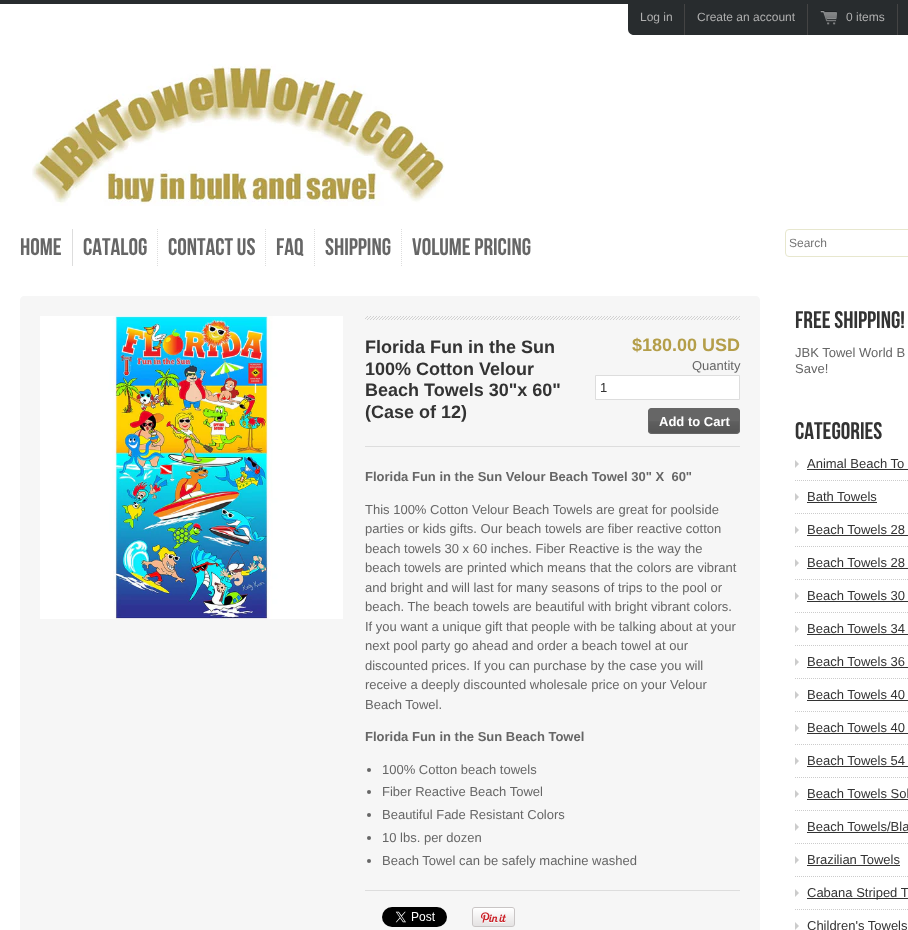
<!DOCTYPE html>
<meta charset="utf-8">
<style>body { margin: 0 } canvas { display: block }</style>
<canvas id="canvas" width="908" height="930"></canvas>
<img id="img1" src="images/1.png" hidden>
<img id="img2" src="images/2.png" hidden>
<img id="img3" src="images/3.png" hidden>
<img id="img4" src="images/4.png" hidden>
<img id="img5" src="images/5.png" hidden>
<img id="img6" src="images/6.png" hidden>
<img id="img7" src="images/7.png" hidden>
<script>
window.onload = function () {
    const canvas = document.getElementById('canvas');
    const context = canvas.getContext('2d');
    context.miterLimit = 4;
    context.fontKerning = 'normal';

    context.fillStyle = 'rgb(255, 255, 255)';
    context.fillRect(0, 0, 908, 930);
    context.fillStyle = 'rgb(40, 44, 46)';
    context.fillRect(0, 0, 908, 4);
    context.beginPath();
    context.moveTo(628, 4);
    context.lineTo(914, 4);
    context.lineTo(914, 29);
    context.bezierCurveTo(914, 32.5, 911.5, 35, 908, 35);
    context.lineTo(634, 35);
    context.bezierCurveTo(630.5, 35, 628, 32.5, 628, 29);
    context.closePath();
    context.fill();
    context.fillStyle = 'rgb(68, 68, 68)';
    context.fillRect(684, 4, 1, 31);
    context.fillRect(807, 4, 1, 31);
    context.fillRect(897, 4, 1, 31);
    context.drawImage(document.getElementById('img1'), 820, 10, 17, 15);
    context.drawImage(document.getElementById('img2'), 32, 64, 413, 142);
    context.fillStyle = 'rgb(221, 221, 221)';
    context.fillRect(72, 229, 1, 37);
    context.beginPath();
    context.moveTo(157.5, 229);
    context.lineTo(157.5, 266);
    context.strokeStyle = 'rgb(221, 221, 221)';
    context.setLineDash([1, 1]);
    context.stroke();
    context.beginPath();
    context.moveTo(265.5, 229);
    context.lineTo(265.5, 266);
    context.stroke();
    context.beginPath();
    context.moveTo(314.5, 229);
    context.lineTo(314.5, 266);
    context.stroke();
    context.beginPath();
    context.moveTo(401.5, 229);
    context.lineTo(401.5, 266);
    context.stroke();
    context.beginPath();
    context.roundRect(785.5, 229.5, 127, 27, 3.5);
    context.strokeStyle = 'rgb(231, 231, 206)';
    context.setLineDash([]);
    context.stroke();
    context.fillStyle = 'rgb(246, 246, 246)';
    context.beginPath();
    context.moveTo(24, 296);
    context.lineTo(756, 296);
    context.bezierCurveTo(758, 296, 760, 298, 760, 300);
    context.lineTo(760, 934);
    context.lineTo(20, 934);
    context.lineTo(20, 300);
    context.bezierCurveTo(20, 298, 22, 296, 24, 296);
    context.closePath();
    context.fill();
    context.drawImage(document.getElementById('img3'), 40, 316, 303, 303);
    context.drawImage(document.getElementById('img4'), 365, 316, 375, 4);
    context.fillStyle = 'rgb(221, 221, 221)';
    context.fillRect(365, 446, 375, 1);
    context.fillStyle = 'rgb(255, 255, 255)';
    context.beginPath();
    context.rect(595.5, 375.5, 144, 24);
    context.fill();
    context.strokeStyle = 'rgb(221, 221, 221)';
    context.stroke();
    context.fillStyle = 'rgb(102, 102, 102)';
    context.beginPath();
    context.roundRect(648, 408, 92, 26, 4);
    context.fill();
    context.drawImage(document.getElementById('img5'), 648, 421, 92, 12);
    context.beginPath();
    context.roundRect(648.5, 408.5, 91, 25, 3.5);
    context.strokeStyle = 'rgb(102, 102, 102)';
    context.stroke();
    context.beginPath();
    context.arc(369, 770, 2, 0, 2 * Math.PI);
    context.fill();
    context.beginPath();
    context.arc(369, 792, 2, 0, 2 * Math.PI);
    context.fill();
    context.beginPath();
    context.arc(369, 815, 2, 0, 2 * Math.PI);
    context.fill();
    context.beginPath();
    context.arc(369, 838, 2, 0, 2 * Math.PI);
    context.fill();
    context.beginPath();
    context.arc(369, 861, 2, 0, 2 * Math.PI);
    context.fill();
    context.fillStyle = 'rgb(221, 221, 221)';
    context.fillRect(365, 890, 375, 1);
    context.drawImage(document.getElementById('img6'), 382, 907, 65, 20);
    context.drawImage(document.getElementById('img7'), 472, 907, 43, 20);
    context.beginPath();
    context.moveTo(795, 480.5);
    context.lineTo(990, 480.5);
    context.strokeStyle = 'rgb(204, 204, 204)';
    context.setLineDash([1, 1]);
    context.stroke();
    context.fillStyle = 'rgb(204, 204, 204)';
    context.beginPath();
    context.moveTo(795, 468);
    context.lineTo(795, 460);
    context.lineTo(799, 464);
    context.closePath();
    context.moveTo(795, 501);
    context.lineTo(795, 493);
    context.lineTo(799, 497);
    context.closePath();
    context.fill();
    context.fillStyle = 'rgb(51, 51, 51)';
    context.fillRect(807, 469, 101, 1);
    context.fillRect(807, 502, 70, 1);
    context.beginPath();
    context.moveTo(795, 513.5);
    context.lineTo(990, 513.5);
    context.stroke();
    context.beginPath();
    context.moveTo(795, 546.5);
    context.lineTo(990, 546.5);
    context.stroke();
    context.fillStyle = 'rgb(204, 204, 204)';
    context.beginPath();
    context.moveTo(795, 534);
    context.lineTo(795, 526);
    context.lineTo(799, 530);
    context.closePath();
    context.moveTo(795, 567);
    context.lineTo(795, 559);
    context.lineTo(799, 563);
    context.closePath();
    context.fill();
    context.fillStyle = 'rgb(51, 51, 51)';
    context.fillRect(807, 535, 101, 1);
    context.fillRect(807, 568, 101, 1);
    context.beginPath();
    context.moveTo(795, 579.5);
    context.lineTo(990, 579.5);
    context.stroke();
    context.beginPath();
    context.moveTo(795, 612.5);
    context.lineTo(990, 612.5);
    context.stroke();
    context.fillStyle = 'rgb(204, 204, 204)';
    context.beginPath();
    context.moveTo(795, 600);
    context.lineTo(795, 592);
    context.lineTo(799, 596);
    context.closePath();
    context.moveTo(795, 633);
    context.lineTo(795, 625);
    context.lineTo(799, 629);
    context.closePath();
    context.fill();
    context.fillStyle = 'rgb(51, 51, 51)';
    context.fillRect(807, 601, 101, 1);
    context.fillRect(807, 634, 101, 1);
    context.beginPath();
    context.moveTo(795, 645.5);
    context.lineTo(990, 645.5);
    context.stroke();
    context.beginPath();
    context.moveTo(795, 678.5);
    context.lineTo(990, 678.5);
    context.stroke();
    context.fillStyle = 'rgb(204, 204, 204)';
    context.beginPath();
    context.moveTo(795, 666);
    context.lineTo(795, 658);
    context.lineTo(799, 662);
    context.closePath();
    context.moveTo(795, 699);
    context.lineTo(795, 691);
    context.lineTo(799, 695);
    context.closePath();
    context.fill();
    context.fillStyle = 'rgb(51, 51, 51)';
    context.fillRect(807, 667, 101, 1);
    context.fillRect(807, 700, 101, 1);
    context.beginPath();
    context.moveTo(795, 711.5);
    context.lineTo(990, 711.5);
    context.stroke();
    context.beginPath();
    context.moveTo(795, 744.5);
    context.lineTo(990, 744.5);
    context.stroke();
    context.fillStyle = 'rgb(204, 204, 204)';
    context.beginPath();
    context.moveTo(795, 732);
    context.lineTo(795, 724);
    context.lineTo(799, 728);
    context.closePath();
    context.moveTo(795, 765);
    context.lineTo(795, 757);
    context.lineTo(799, 761);
    context.closePath();
    context.fill();
    context.fillStyle = 'rgb(51, 51, 51)';
    context.fillRect(807, 733, 101, 1);
    context.fillRect(807, 766, 101, 1);
    context.beginPath();
    context.moveTo(795, 777.5);
    context.lineTo(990, 777.5);
    context.stroke();
    context.beginPath();
    context.moveTo(795, 810.5);
    context.lineTo(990, 810.5);
    context.stroke();
    context.fillStyle = 'rgb(204, 204, 204)';
    context.beginPath();
    context.moveTo(795, 798);
    context.lineTo(795, 790);
    context.lineTo(799, 794);
    context.closePath();
    context.moveTo(795, 831);
    context.lineTo(795, 823);
    context.lineTo(799, 827);
    context.closePath();
    context.fill();
    context.fillStyle = 'rgb(51, 51, 51)';
    context.fillRect(807, 799, 101, 1);
    context.fillRect(807, 832, 101, 1);
    context.beginPath();
    context.moveTo(795, 843.5);
    context.lineTo(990, 843.5);
    context.stroke();
    context.beginPath();
    context.moveTo(795, 876.5);
    context.lineTo(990, 876.5);
    context.stroke();
    context.fillStyle = 'rgb(204, 204, 204)';
    context.beginPath();
    context.moveTo(795, 864);
    context.lineTo(795, 856);
    context.lineTo(799, 860);
    context.closePath();
    context.moveTo(795, 897);
    context.lineTo(795, 889);
    context.lineTo(799, 893);
    context.closePath();
    context.fill();
    context.fillStyle = 'rgb(51, 51, 51)';
    context.fillRect(807, 865, 93, 1);
    context.fillRect(807, 898, 101, 1);
    context.beginPath();
    context.moveTo(795, 909.5);
    context.lineTo(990, 909.5);
    context.stroke();
    context.fillStyle = 'rgb(204, 204, 204)';
    context.beginPath();
    context.moveTo(795, 930);
    context.lineTo(795, 922);
    context.lineTo(799, 926);
    context.closePath();
    context.fill();
    context.font = '12px Liberation Sans';
    context.fillStyle = 'rgb(175, 175, 175)';
    context.fillText('Log in', 640, 21);
    context.fillText('Create an account', 697, 21);
    context.fillText('0 items', 846, 21);
    context.font = '24px Bebas Neue';
    context.fillStyle = 'rgb(102, 102, 102)';
    context.fillText('Home', 20, 255);
    context.fillText('Catalog', 83, 255);
    context.fillText('Contact Us', 168, 255);
    context.fillText('FAQ', 276, 255);
    context.fillText('Shipping', 325, 255);
    context.fillText('Volume Pricing', 412, 255);
    context.font = '12px Liberation Sans';
    context.fillStyle = 'rgb(117, 117, 117)';
    context.fillText('Search', 789, 247);
    context.font = 'bold 18px Liberation Sans';
    context.fillStyle = 'rgb(51, 51, 51)';
    context.fillText('Florida Fun in the Sun', 365, 353);
    context.fillText('100% Cotton Velour', 365, 375);
    context.fillText('Beach Towels 30"x 60"', 365, 396);
    context.fillText('(Case of 12)', 365, 418);
    context.fillStyle = 'rgb(180, 158, 73)';
    context.fillText('$180.00 USD', 632, 351);
    context.font = '13px Liberation Sans';
    context.fillStyle = 'rgb(102, 102, 102)';
    context.fillText('Quantity', 692, 370);
    context.fillStyle = 'rgb(51, 51, 51)';
    context.fillText('1', 600, 392);
    context.font = 'bold 13px Liberation Sans';
    context.fillStyle = 'rgb(255, 255, 255)';
    context.fillText('Add to Cart', 659, 426);
    context.fillStyle = 'rgb(102, 102, 102)';
    context.fillText('Florida Fun in the Sun Velour Beach Towel 30" X  60"', 365, 481);
    context.font = '13px Liberation Sans';
    context.fillText('This 100% Cotton Velour Beach Towels are great for poolside', 365, 514);
    context.fillText('parties or kids gifts. Our beach towels are fiber reactive cotton', 365, 533);
    context.fillText('beach towels 30 x 60 inches. Fiber Reactive is the way the', 365, 553);
    context.fillText('beach towels are printed which means that the colors are vibrant', 365, 572);
    context.fillText('and bright and will last for many seasons of trips to the pool or', 365, 592);
    context.fillText('beach. The beach towels are beautiful with bright vibrant colors.', 365, 611);
    context.fillText('If you want a unique gift that people with be talking about at your', 365, 631);
    context.fillText('next pool party go ahead and order a beach towel at our', 365, 650);
    context.fillText('discounted prices. If you can purchase by the case you will', 365, 670);
    context.fillText('receive a deeply discounted wholesale price on your Velour', 365, 689);
    context.fillText('Beach Towel.', 365, 709);
    context.font = 'bold 13px Liberation Sans';
    context.fillText('Florida Fun in the Sun Beach Towel', 365, 741);
    context.font = '13px Liberation Sans';
    context.fillText('100% Cotton beach towels', 382, 774);
    context.fillText('Fiber Reactive Beach Towel', 382, 796);
    context.fillText('Beautiful Fade Resistant Colors', 382, 819);
    context.fillText('10 lbs. per dozen', 382, 842);
    context.fillText('Beach Towel can be safely machine washed', 382, 865);
    context.font = '24px Bebas Neue';
    context.fillStyle = 'rgb(51, 51, 51)';
    context.fillText('FREE SHIPPING!', 795, 328);
    context.font = '13px Liberation Sans';
    context.fillStyle = 'rgb(102, 102, 102)';
    context.fillText('JBK Towel World B', 795, 357);
    context.fillText('Save!', 795, 373);
    context.font = '24px Bebas Neue';
    context.fillStyle = 'rgb(51, 51, 51)';
    context.fillText('Categories', 795, 439);
    context.font = '13px Liberation Sans';
    context.fillText('Animal Beach To', 807, 468);
    context.fillText('Bath Towels', 807, 501);
    context.fillText('Beach Towels 28', 807, 534);
    context.fillText('Beach Towels 28', 807, 567);
    context.fillText('Beach Towels 30', 807, 600);
    context.fillText('Beach Towels 34', 807, 633);
    context.fillText('Beach Towels 36', 807, 666);
    context.fillText('Beach Towels 40', 807, 699);
    context.fillText('Beach Towels 40', 807, 732);
    context.fillText('Beach Towels 54', 807, 765);
    context.fillText('Beach Towels Sol', 807, 798);
    context.fillText('Beach Towels/Bla', 807, 831);
    context.fillText('Brazilian Towels', 807, 864);
    context.fillText('Cabana Striped T', 807, 897);
    context.fillText('Children\'s Towels', 807, 930);
};
</script>
